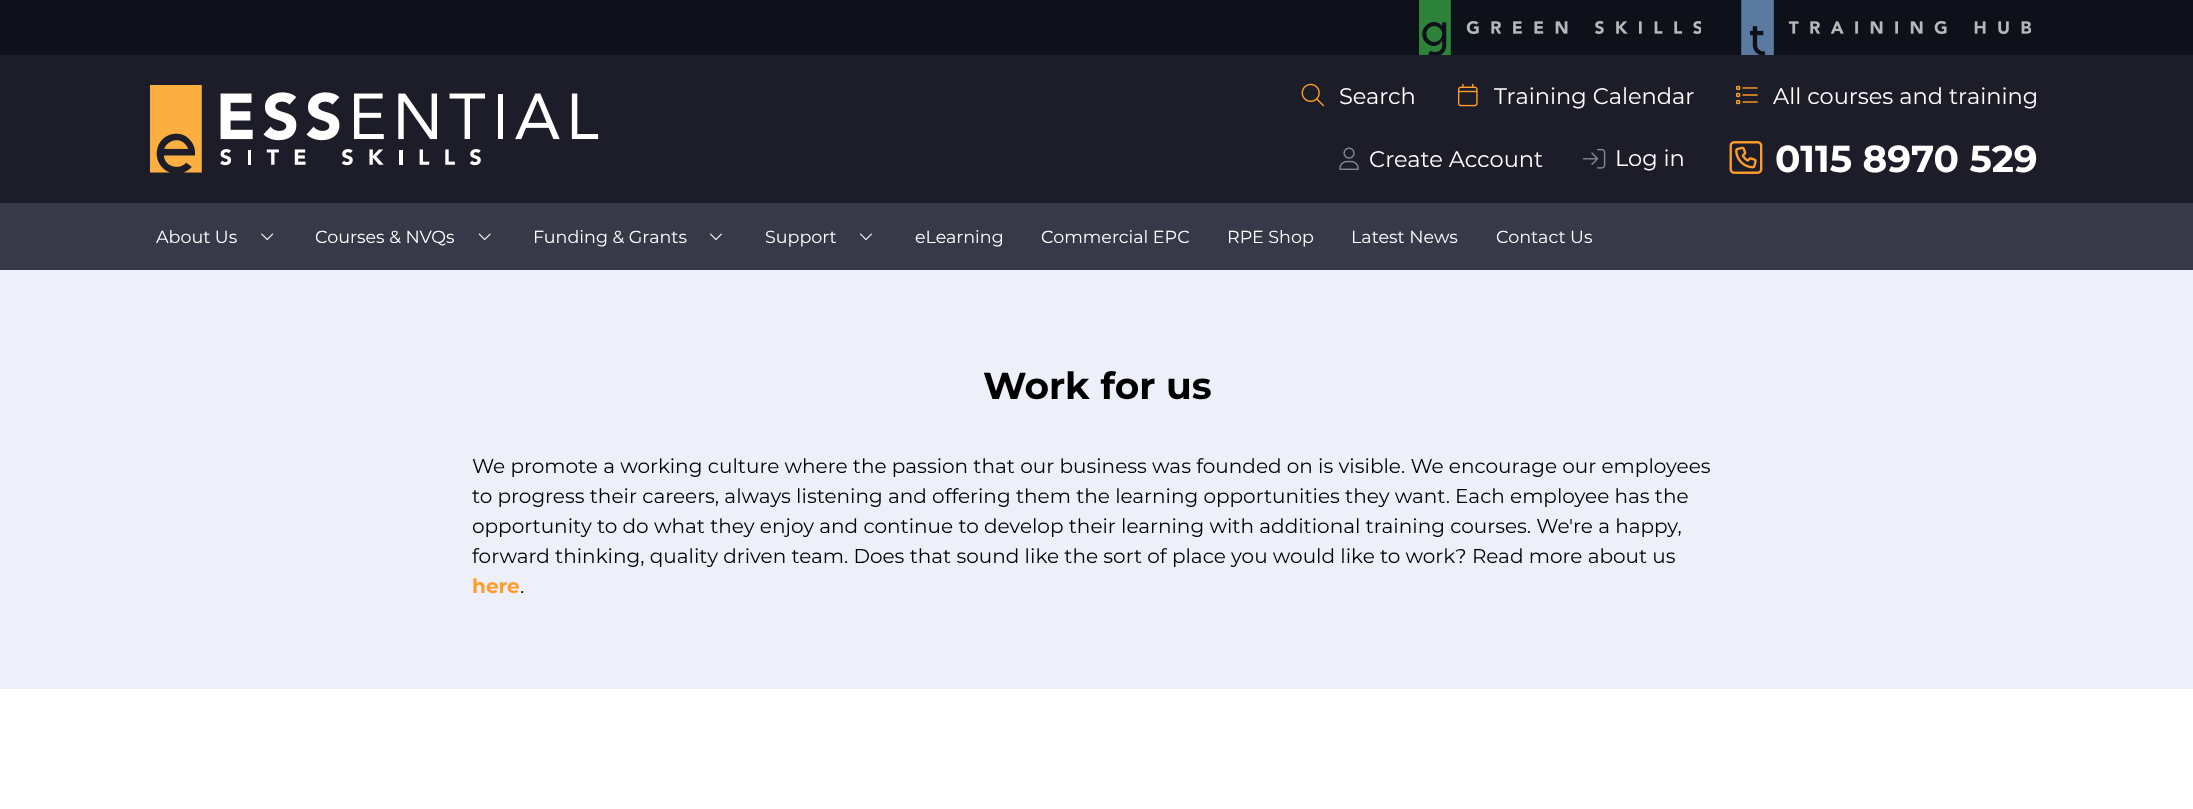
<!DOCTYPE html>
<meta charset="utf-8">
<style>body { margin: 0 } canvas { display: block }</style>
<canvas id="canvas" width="2193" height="809"></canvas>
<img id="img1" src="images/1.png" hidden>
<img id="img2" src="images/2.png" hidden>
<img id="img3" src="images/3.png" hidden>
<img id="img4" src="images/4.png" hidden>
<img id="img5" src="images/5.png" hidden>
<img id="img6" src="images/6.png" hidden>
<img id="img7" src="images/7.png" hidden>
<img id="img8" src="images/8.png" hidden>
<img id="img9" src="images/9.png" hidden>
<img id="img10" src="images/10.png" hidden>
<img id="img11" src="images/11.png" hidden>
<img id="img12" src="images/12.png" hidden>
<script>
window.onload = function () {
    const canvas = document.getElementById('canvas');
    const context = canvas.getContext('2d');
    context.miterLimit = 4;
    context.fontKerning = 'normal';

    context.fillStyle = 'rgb(28, 29, 40)';
    context.fillRect(0, 0, 2193, 809);
    context.fillStyle = 'rgb(15, 17, 26)';
    context.fillRect(0, 0, 2193, 55);
    context.drawImage(document.getElementById('img1'), 1419, 0, 282, 55);
    context.drawImage(document.getElementById('img2'), 1741, 0, 290, 55);
    context.drawImage(document.getElementById('img3'), 150, 85, 449, 88);
    context.drawImage(document.getElementById('img4'), 1301, 83, 23, 24);
    context.drawImage(document.getElementById('img5'), 1457, 83, 21, 24);
    context.drawImage(document.getElementById('img6'), 1736, 85, 22, 20);
    context.drawImage(document.getElementById('img7'), 1339, 147, 20, 23);
    context.drawImage(document.getElementById('img8'), 1582, 148, 24, 21);
    context.drawImage(document.getElementById('img9'), 1729, 141, 34, 33);
    context.fillStyle = 'rgb(56, 57, 72)';
    context.fillRect(0, 203, 2193, 67);
    context.drawImage(document.getElementById('img10'), 261, 233, 13, 7);
    context.drawImage(document.getElementById('img11'), 478, 233, 13, 7);
    context.drawImage(document.getElementById('img12'), 710, 233, 12, 7);
    context.drawImage(document.getElementById('img12'), 860, 233, 12, 7);
    context.fillStyle = 'rgb(237, 239, 249)';
    context.fillRect(0, 270, 2193, 419);
    context.fillStyle = 'rgb(255, 255, 255)';
    context.fillRect(0, 689, 2193, 120);
    context.font = '22.5px Montserrat';
    context.fillText('Search', 1339, 104);
    context.fillText('Training Calendar', 1494, 104);
    context.fillText('All courses and training', 1773, 104);
    context.fillText('Create Account', 1369, 167);
    context.fillText('Log in', 1615, 166);
    context.font = 'bold 37.5px Montserrat';
    context.fillText('0115 8970 529', 1775, 172);
    context.font = '17.5px Montserrat';
    context.fillText('About Us', 156, 243);
    context.fillText('Courses & NVQs', 315, 243);
    context.fillText('Funding & Grants', 533, 243);
    context.fillText('Support', 765, 243);
    context.fillText('eLearning', 915, 243);
    context.fillText('Commercial EPC', 1041, 243);
    context.fillText('RPE Shop', 1227, 243);
    context.fillText('Latest News', 1351, 243);
    context.fillText('Contact Us', 1496, 243);
    context.font = 'bold 37.5px Montserrat';
    context.fillStyle = 'rgb(0, 0, 0)';
    context.fillText('Work for us', 983, 399);
    context.font = '20px Montserrat';
    context.fillText('We promote a working culture where the passion that our business was founded on is visible. We encourage our employees', 472, 473);
    context.fillText('to progress their careers, always listening and offering them the learning opportunities they want. Each employee has the', 472, 503);
    context.fillText('opportunity to do what they enjoy and continue to develop their learning with additional training courses. We\'re a happy,', 472, 533);
    context.fillText('forward thinking, quality driven team. Does that sound like the sort of place you would like to work? Read more about us', 472, 563);
    context.font = 'bold 20px Montserrat';
    context.fillStyle = 'rgb(254, 157, 43)';
    context.fillText('here', 472, 593);
    context.font = '20px Montserrat';
    context.fillStyle = 'rgb(0, 0, 0)';
    context.fillText('.', 520, 593);
};
</script>
